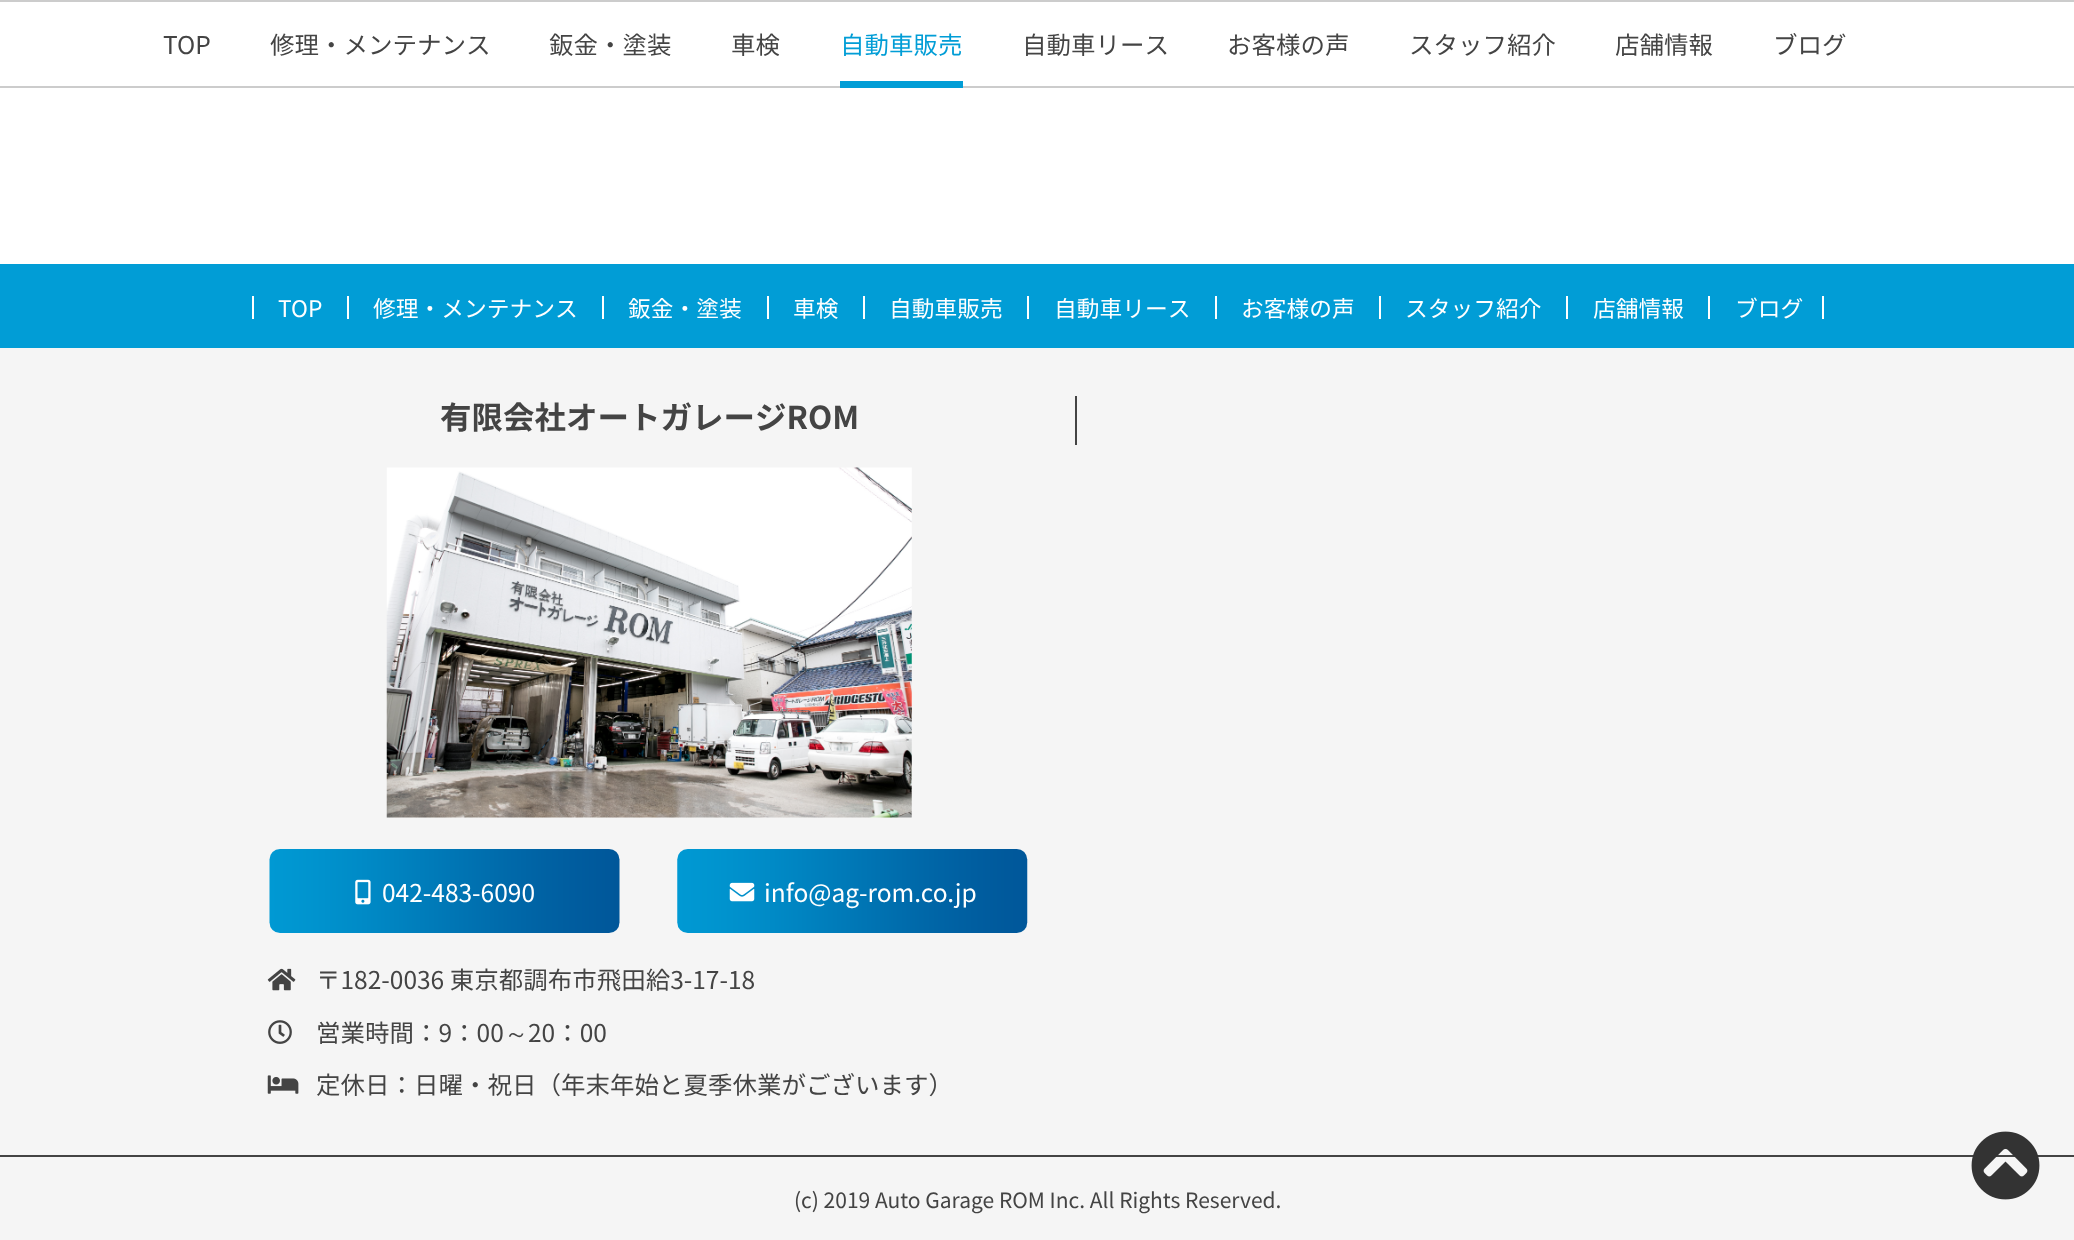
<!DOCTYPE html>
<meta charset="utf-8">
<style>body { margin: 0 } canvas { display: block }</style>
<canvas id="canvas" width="2074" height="1240"></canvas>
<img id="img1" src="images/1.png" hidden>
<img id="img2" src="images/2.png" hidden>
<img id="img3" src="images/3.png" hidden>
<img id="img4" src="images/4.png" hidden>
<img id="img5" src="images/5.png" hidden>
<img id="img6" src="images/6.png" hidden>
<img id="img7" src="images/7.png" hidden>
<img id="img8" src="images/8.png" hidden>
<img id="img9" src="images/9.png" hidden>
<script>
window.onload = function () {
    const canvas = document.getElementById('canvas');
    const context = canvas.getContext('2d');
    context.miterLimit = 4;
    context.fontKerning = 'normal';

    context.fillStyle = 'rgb(255, 255, 255)';
    context.fillRect(0, 0, 2074, 1240);
    context.fillStyle = 'rgb(204, 204, 204)';
    context.fillRect(0, 0, 2074, 2);
    context.fillRect(0, 86, 2074, 2);
    context.fillStyle = 'rgb(1, 157, 214)';
    context.fillRect(840, 81, 123, 7);
    context.fillRect(0, 264, 2074, 84);
    context.fillStyle = 'rgb(255, 255, 255)';
    context.fillRect(252, 296, 2, 23);
    context.fillRect(347, 296, 2, 23);
    context.fillRect(602, 296, 2, 23);
    context.fillRect(767, 296, 2, 23);
    context.fillRect(863, 296, 2, 23);
    context.fillRect(1027, 296, 2, 23);
    context.fillRect(1215, 296, 2, 23);
    context.fillRect(1379, 296, 2, 23);
    context.fillRect(1566, 296, 2, 23);
    context.fillRect(1822, 296, 2, 23);
    context.fillRect(1708, 296, 2, 23);
    context.fillStyle = 'rgb(245, 245, 245)';
    context.fillRect(0, 348, 2074, 807);
    context.drawImage(document.getElementById('img1'), 386, 467, 526, 351);
    context.drawImage(document.getElementById('img2'), 269, 849, 351, 84);
    context.drawImage(document.getElementById('img3'), 355, 879, 16, 26);
    context.drawImage(document.getElementById('img4'), 677, 849, 351, 84);
    context.drawImage(document.getElementById('img5'), 729, 882, 26, 20);
    context.drawImage(document.getElementById('img6'), 267, 968, 29, 23);
    context.drawImage(document.getElementById('img7'), 268, 1020, 24, 24);
    context.drawImage(document.getElementById('img8'), 267, 1075, 32, 19);
    context.fillStyle = 'rgb(68, 68, 68)';
    context.fillRect(1075, 396, 2, 49);
    context.fillStyle = 'rgb(245, 245, 245)';
    context.fillRect(0, 1157, 2074, 83);
    context.fillStyle = 'rgb(68, 68, 68)';
    context.fillRect(0, 1155, 2074, 2);
    context.drawImage(document.getElementById('img9'), 1971, 1131, 69, 69);
    context.font = '24.5px Noto Sans JP';
    context.fillText('TOP', 163, 54);
    context.fillText('修理・メンテナンス', 270, 54);
    context.fillText('鈑金・塗装', 549, 54);
    context.fillText('車検', 731, 54);
    context.fillStyle = 'rgb(1, 157, 214)';
    context.fillText('自動車販売', 840, 54);
    context.fillStyle = 'rgb(68, 68, 68)';
    context.fillText('自動車リース', 1022, 54);
    context.fillText('お客様の声', 1227, 54);
    context.fillText('スタッフ紹介', 1409, 54);
    context.fillText('店舗情報', 1615, 54);
    context.fillText('ブログ', 1773, 54);
    context.font = '22.75px Noto Sans JP';
    context.fillStyle = 'rgb(255, 255, 255)';
    context.fillText('TOP', 278, 317);
    context.fillText('修理・メンテナンス', 373, 317);
    context.fillText('鈑金・塗装', 628, 317);
    context.fillText('車検', 793, 317);
    context.fillText('自動車販売', 889, 317);
    context.fillText('自動車リース', 1054, 317);
    context.fillText('お客様の声', 1241, 317);
    context.fillText('スタッフ紹介', 1405, 317);
    context.fillText('店舗情報', 1593, 317);
    context.fillText('ブログ', 1735, 317);
    context.font = 'bold 31.5px Noto Sans JP';
    context.fillStyle = 'rgb(68, 68, 68)';
    context.fillText('有限会社オートガレージROM', 440, 429);
    context.font = '24.5px Noto Sans JP';
    context.fillStyle = 'rgb(255, 255, 255)';
    context.fillText('042-483-6090', 382, 902);
    context.fillText('info@ag-rom.co.jp', 764, 902);
    context.fillStyle = 'rgb(68, 68, 68)';
    context.fillText('〒182-0036 東京都調布市飛田給3-17-18', 316, 989);
    context.fillText('営業時間：9：00', 316, 1042);
    context.font = '500 24.5px WenQuanYi Zen Hei';
    context.fillText('～', 504, 1042);
    context.font = '24.5px Noto Sans JP';
    context.fillText('20：00', 528, 1042);
    context.fillText('定休日：日曜・祝日（年末年始と夏季休業がございます）', 316, 1094);
    context.font = '21px Noto Sans JP';
    context.fillText('(c) 2019 Auto Garage ROM Inc. All Rights Reserved.', 794, 1208);
};
</script>
